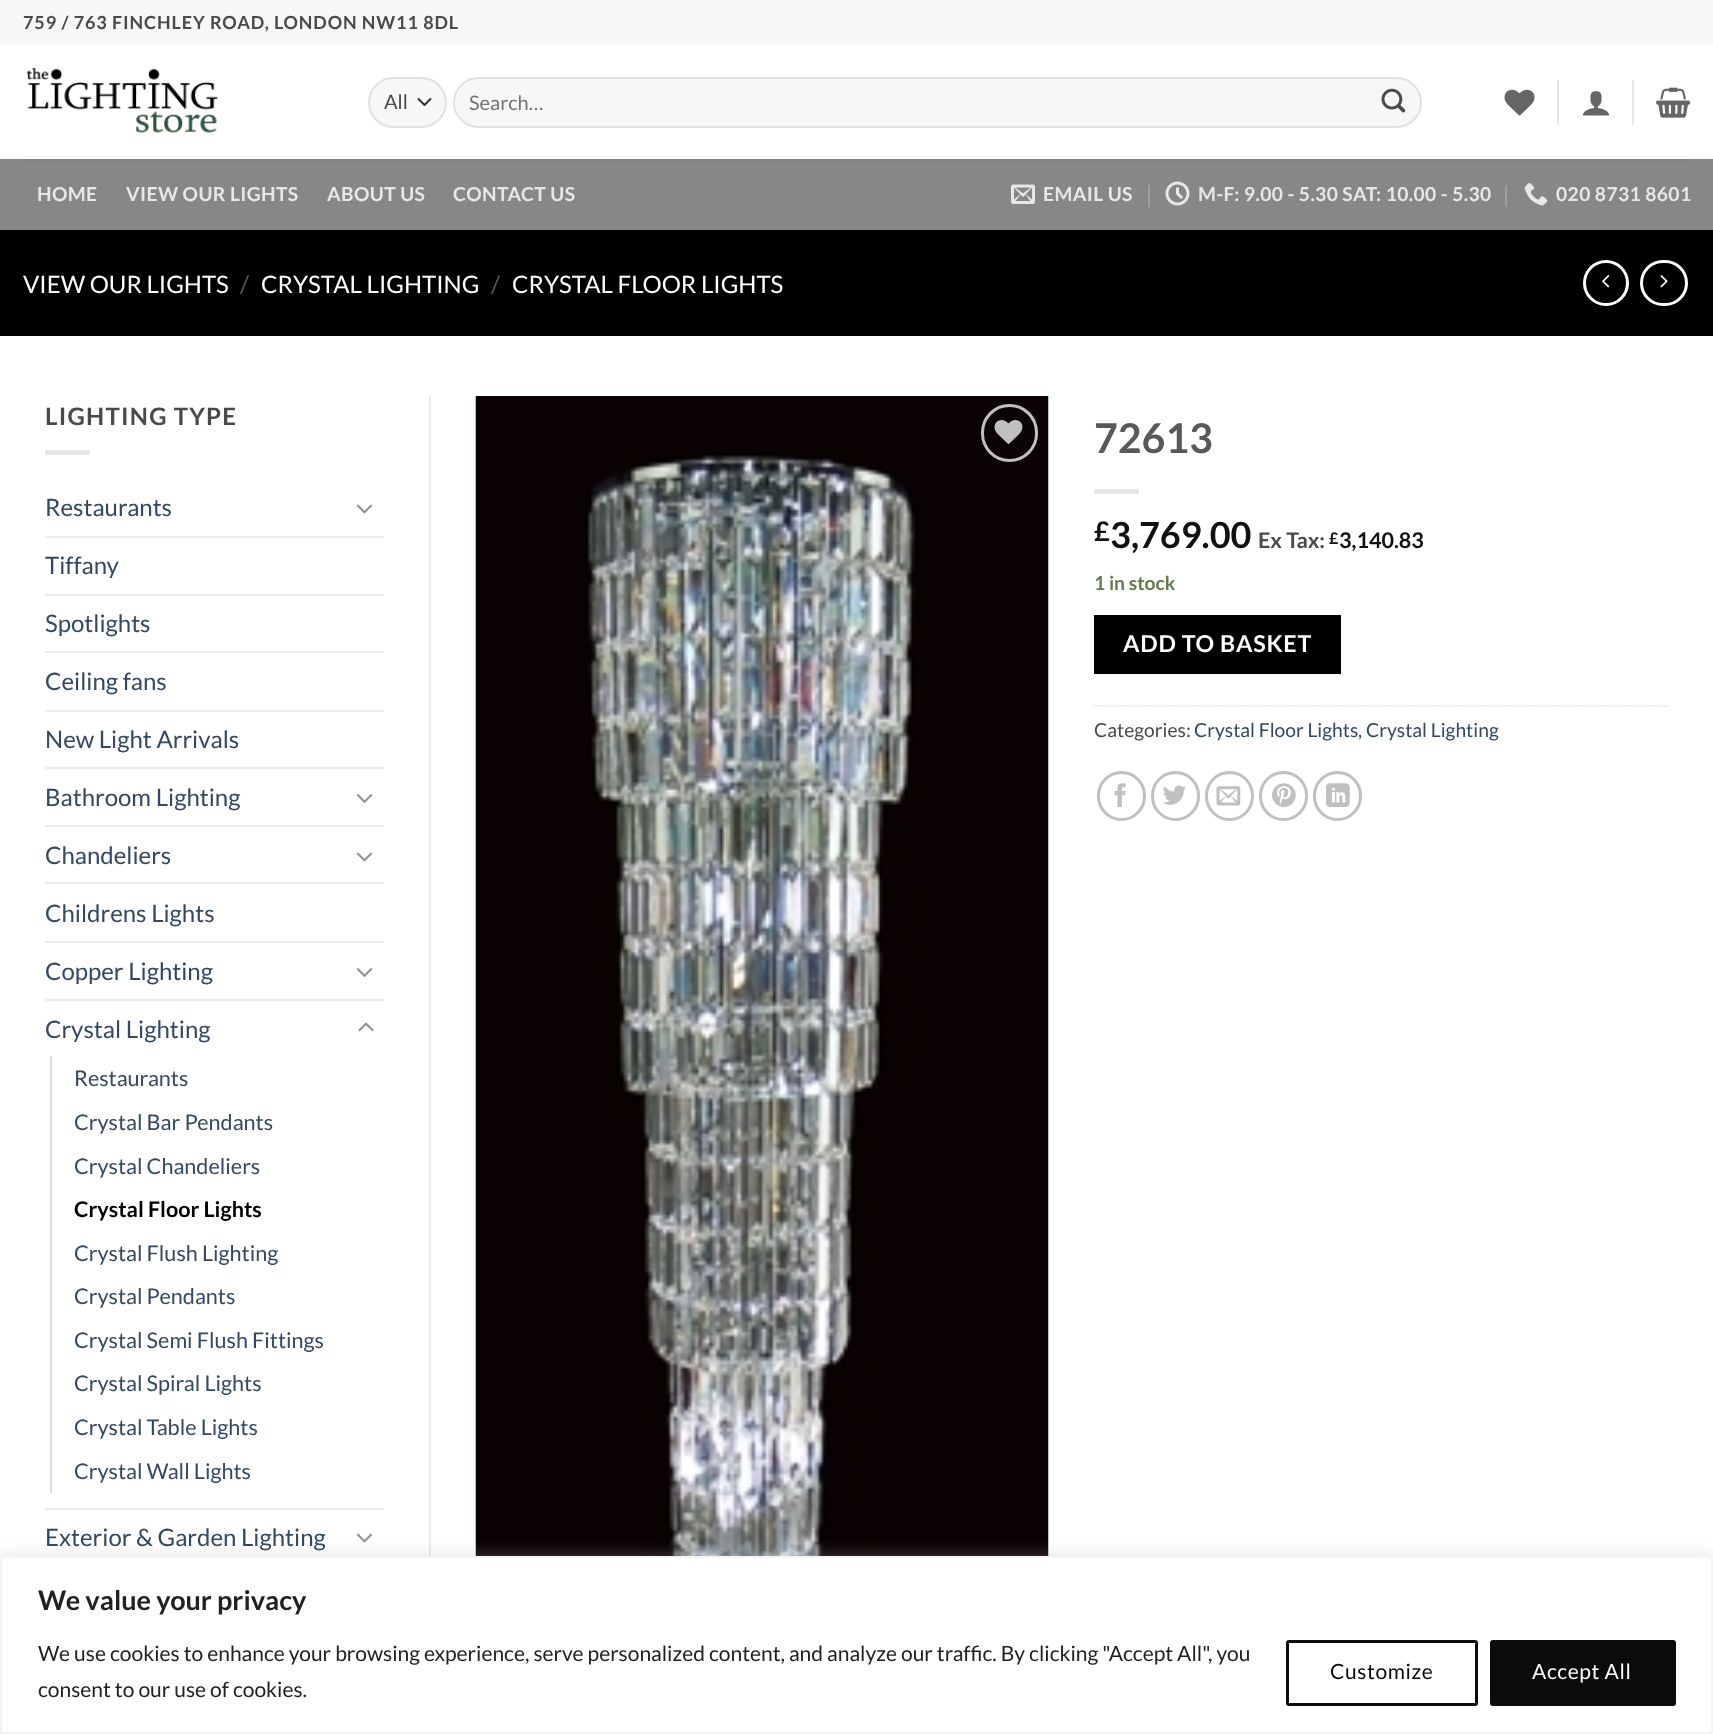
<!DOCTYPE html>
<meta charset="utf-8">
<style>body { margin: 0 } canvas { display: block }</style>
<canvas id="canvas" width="1713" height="1734"></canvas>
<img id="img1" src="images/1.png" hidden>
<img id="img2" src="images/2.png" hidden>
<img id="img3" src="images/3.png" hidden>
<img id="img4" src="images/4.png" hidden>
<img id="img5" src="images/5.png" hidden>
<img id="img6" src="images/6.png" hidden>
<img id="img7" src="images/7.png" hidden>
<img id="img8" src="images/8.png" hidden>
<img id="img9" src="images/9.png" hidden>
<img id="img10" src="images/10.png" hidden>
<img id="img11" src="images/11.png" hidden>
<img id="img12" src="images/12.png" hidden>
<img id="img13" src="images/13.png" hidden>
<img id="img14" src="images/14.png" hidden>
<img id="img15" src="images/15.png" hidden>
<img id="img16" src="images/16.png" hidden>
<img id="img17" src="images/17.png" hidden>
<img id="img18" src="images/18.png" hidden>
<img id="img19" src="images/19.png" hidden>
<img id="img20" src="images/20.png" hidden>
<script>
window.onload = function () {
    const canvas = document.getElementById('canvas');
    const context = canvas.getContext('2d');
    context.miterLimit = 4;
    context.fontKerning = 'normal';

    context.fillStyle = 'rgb(255, 255, 255)';
    context.fillRect(0, 0, 1713, 1734);
    context.fillStyle = 'rgb(247, 247, 247)';
    context.fillRect(0, 0, 1713, 45);
    context.drawImage(document.getElementById('img1'), 26, 67, 192, 66);
    context.beginPath();
    context.roundRect(368, 77, 79, 51, 25.5);
    context.fill();
    context.beginPath();
    context.moveTo(418.5, 99);
    context.lineTo(424.5, 105);
    context.lineTo(430.5, 99);
    context.strokeStyle = 'rgb(51, 51, 51)';
    context.lineWidth = 2;
    context.lineCap = 'round';
    context.lineJoin = 'round';
    context.stroke();
    context.beginPath();
    context.roundRect(369, 78, 77, 49, 24.5);
    context.strokeStyle = 'rgba(0, 0, 0, 0.09)';
    context.lineJoin = 'miter';
    context.stroke();
    context.beginPath();
    context.roundRect(453, 77, 969, 51, 25.5);
    context.fill();
    context.beginPath();
    context.roundRect(454, 78, 967, 49, 24.5);
    context.stroke();
    context.drawImage(document.getElementById('img2'), 1381, 88, 25, 25);
    context.drawImage(document.getElementById('img3'), 1504, 89, 31, 27);
    context.fillStyle = 'rgb(230, 230, 230)';
    context.fillRect(1557, 80, 2, 45);
    context.drawImage(document.getElementById('img4'), 1582, 91, 28, 25);
    context.fillRect(1632, 80, 2, 45);
    context.drawImage(document.getElementById('img5'), 1656, 87, 35, 31);
    context.fillStyle = 'rgb(135, 135, 135)';
    context.fillRect(0, 159, 1713, 71);
    context.fillStyle = 'rgb(129, 129, 129)';
    context.fillRect(23, 159, 1668, 2);
    context.drawImage(document.getElementById('img6'), 1011, 184, 24, 20);
    context.fillStyle = 'rgb(159, 159, 159)';
    context.fillRect(1148, 185, 2, 22);
    context.drawImage(document.getElementById('img7'), 1165, 181, 25, 25);
    context.fillRect(1505, 185, 2, 22);
    context.drawImage(document.getElementById('img8'), 1524, 183, 24, 23);
    context.fillStyle = 'rgb(0, 0, 0)';
    context.fillRect(0, 230, 1713, 106);
    context.beginPath();
    context.arc(1606, 283, 21.5, 0, 2 * Math.PI);
    context.strokeStyle = 'rgb(255, 255, 255)';
    context.lineWidth = 3;
    context.stroke();
    context.drawImage(document.getElementById('img9'), 1602, 275, 8, 13);
    context.beginPath();
    context.roundRect(1641.5, 261.5, 45, 43, 21.5);
    context.stroke();
    context.drawImage(document.getElementById('img10'), 1660, 275, 8, 13);
    context.fillStyle = 'rgb(230, 230, 230)';
    context.fillRect(45, 450, 45, 5);
    context.drawImage(document.getElementById('img11'), 356, 504, 17, 10);
    context.fillStyle = 'rgb(236, 236, 236)';
    context.fillRect(45, 536, 339, 2);
    context.fillRect(45, 594, 339, 2);
    context.fillRect(45, 651, 339, 2);
    context.fillRect(45, 710, 339, 2);
    context.fillRect(45, 767, 339, 2);
    context.drawImage(document.getElementById('img12'), 356, 794, 17, 9);
    context.fillRect(45, 825, 339, 2);
    context.drawImage(document.getElementById('img11'), 356, 852, 17, 10);
    context.fillRect(45, 882, 339, 2);
    context.fillRect(45, 941, 339, 2);
    context.drawImage(document.getElementById('img12'), 356, 968, 17, 9);
    context.fillRect(45, 999, 339, 2);
    context.drawImage(document.getElementById('img13'), 358, 1022, 16, 10);
    context.fillStyle = 'rgb(221, 221, 221)';
    context.fillRect(50, 1056, 2, 437);
    context.fillStyle = 'rgb(236, 236, 236)';
    context.fillRect(45, 1508, 339, 2);
    context.drawImage(document.getElementById('img11'), 356, 1533, 17, 10);
    context.fillRect(429, 396, 2, 1160);
    context.drawImage(document.getElementById('img14'), 475, 396, 574, 1160);
    context.beginPath();
    context.roundRect(982.5, 405.5, 54, 55, 27);
    context.strokeStyle = 'rgb(192, 192, 192)';
    context.stroke();
    context.drawImage(document.getElementById('img15'), 994, 420, 29, 24);
    context.fillStyle = 'rgb(230, 230, 230)';
    context.fillRect(1094, 489, 45, 5);
    context.fillStyle = 'rgb(0, 0, 0)';
    context.fillRect(1094, 615, 247, 59);
    context.beginPath();
    context.moveTo(1093.5, 706);
    context.lineTo(1668, 706);
    context.strokeStyle = 'rgb(221, 221, 221)';
    context.lineWidth = 1.5;
    context.lineCap = 'butt';
    context.setLineDash([1.5, 1.5]);
    context.stroke();
    context.beginPath();
    context.roundRect(1098.5, 772.5, 46, 47, 23);
    context.strokeStyle = 'rgb(192, 192, 192)';
    context.lineWidth = 3;
    context.setLineDash([]);
    context.stroke();
    context.drawImage(document.getElementById('img16'), 1114, 783, 12, 24);
    context.beginPath();
    context.roundRect(1152.5, 772.5, 46, 47, 23);
    context.stroke();
    context.drawImage(document.getElementById('img17'), 1163, 785, 23, 20);
    context.beginPath();
    context.roundRect(1206.5, 772.5, 46, 47, 23);
    context.stroke();
    context.drawImage(document.getElementById('img18'), 1216, 786, 25, 20);
    context.beginPath();
    context.roundRect(1260.5, 772.5, 46, 47, 23);
    context.stroke();
    context.drawImage(document.getElementById('img19'), 1272, 783, 24, 24);
    context.beginPath();
    context.roundRect(1314.5, 772.5, 46, 47, 23);
    context.stroke();
    context.drawImage(document.getElementById('img20'), 1326, 783, 24, 24);
    context.fillStyle = 'rgba(172, 171, 171, 0.3)';
    context.filter = 'blur(7.5px)';
    context.beginPath();
    context.rect(0, 1554, 1713, 179);
    context.fill();
    context.filter = 'none';
    context.fillStyle = 'rgb(255, 255, 255)';
    context.beginPath();
    context.rect(1, 1557, 1711, 176);
    context.fill();
    context.strokeStyle = 'rgb(244, 244, 244)';
    context.lineWidth = 2;
    context.stroke();
    context.beginPath();
    context.roundRect(1287.5, 1641.5, 189, 63, 1.5);
    context.strokeStyle = 'rgb(11, 11, 11)';
    context.lineWidth = 3;
    context.stroke();
    context.fillStyle = 'rgb(11, 11, 11)';
    context.beginPath();
    context.roundRect(1491.5, 1641.5, 183, 63, 1.5);
    context.fill();
    context.stroke();
    context.letterSpacing = '0.9px';
    context.font = 'bold 18px Lato';
    context.fillStyle = 'rgb(74, 74, 74)';
    context.fillText('759 / 763 FINCHLEY ROAD, LONDON NW11 8DL', 23, 29);
    context.letterSpacing = '0px';
    context.font = '20px Lato';
    context.fillText('All', 384, 109);
    context.fillStyle = 'rgb(117, 117, 117)';
    context.fillText('Search…', 469, 110);
    context.letterSpacing = '0.4px';
    context.font = 'bold 19.25px Lato';
    context.fillStyle = 'rgb(231, 231, 231)';
    context.fillText('HOME', 37, 201);
    context.fillText('VIEW OUR LIGHTS', 126, 201);
    context.fillText('ABOUT US', 327, 201);
    context.fillText('CONTACT US', 453, 201);
    context.fillText('EMAIL US', 1043, 201);
    context.fillText('M-F: 9.00 - 5.30 SAT: 10.00 - 5.30', 1198, 201);
    context.fillText('020 8731 8601', 1556, 201);
    context.letterSpacing = '0px';
    context.font = '24px Lato';
    context.fillStyle = 'rgb(255, 255, 255)';
    context.fillText('VIEW OUR LIGHTS', 23, 293);
    context.fillStyle = 'rgb(89, 89, 89)';
    context.fillText('/', 240, 293);
    context.fillStyle = 'rgb(255, 255, 255)';
    context.fillText('CRYSTAL LIGHTING', 261, 293);
    context.fillStyle = 'rgb(89, 89, 89)';
    context.fillText('/', 491, 293);
    context.fillStyle = 'rgb(255, 255, 255)';
    context.fillText('CRYSTAL FLOOR LIGHTS', 512, 293);
    context.letterSpacing = '1.25px';
    context.font = 'bold 24px Lato';
    context.fillStyle = 'rgb(74, 74, 74)';
    context.fillText('LIGHTING TYPE', 45, 425);
    context.letterSpacing = '0px';
    context.font = '24px Lato';
    context.fillStyle = 'rgb(51, 72, 98)';
    context.fillText('Restaurants', 45, 516);
    context.fillText('Tiffany', 45, 574);
    context.fillText('Spotlights', 45, 632);
    context.fillText('Ceiling fans', 45, 690);
    context.fillText('New Light Arrivals', 45, 748);
    context.fillText('Bathroom Lighting', 45, 806);
    context.fillText('Chandeliers', 45, 864);
    context.fillText('Childrens Lights', 45, 922);
    context.fillText('Copper Lighting', 45, 980);
    context.fillText('Crystal Lighting', 45, 1038);
    context.font = '21.6px Lato';
    context.fillText('Restaurants', 74, 1086);
    context.fillText('Crystal Bar Pendants', 74, 1130);
    context.fillText('Crystal Chandeliers', 74, 1174);
    context.font = 'bold 21.6px Lato';
    context.fillStyle = 'rgb(0, 0, 0)';
    context.fillText('Crystal Floor Lights', 74, 1217);
    context.font = '21.6px Lato';
    context.fillStyle = 'rgb(51, 72, 98)';
    context.fillText('Crystal Flush Lighting', 74, 1261);
    context.fillText('Crystal Pendants', 74, 1304);
    context.fillText('Crystal Semi Flush Fittings', 74, 1348);
    context.fillText('Crystal Spiral Lights', 74, 1391);
    context.fillText('Crystal Table Lights', 74, 1435);
    context.fillText('Crystal Wall Lights', 74, 1479);
    context.font = '24px Lato';
    context.fillText('Exterior & Garden Lighting', 45, 1546);
    context.font = 'bold 41px Lato';
    context.fillStyle = 'rgb(89, 89, 89)';
    context.fillText('72613', 1094, 453);
    context.font = 'bold 27px Lato';
    context.fillStyle = 'rgb(17, 17, 17)';
    context.fillText('£', 1094, 541);
    context.font = 'bold 36px Lato';
    context.fillText('3,769.00', 1110, 548);
    context.font = 'bold 21.6px Lato';
    context.fillStyle = 'rgb(74, 74, 74)';
    context.fillText('Ex Tax:', 1258, 548);
    context.font = 'bold 16px Lato';
    context.fillStyle = 'rgb(17, 17, 17)';
    context.fillText('£', 1329, 544);
    context.font = 'bold 21.6px Lato';
    context.fillText('3,140.83', 1339, 548);
    context.font = 'bold 19.25px Lato';
    context.fillStyle = 'rgb(98, 125, 71)';
    context.fillText('1 in stock', 1094, 590);
    context.letterSpacing = '0.75px';
    context.font = 'bold 23.25px Lato';
    context.fillStyle = 'rgb(255, 255, 255)';
    context.fillText('ADD TO BASKET', 1123, 652);
    context.letterSpacing = '0px';
    context.font = '19.25px Lato';
    context.fillStyle = 'rgb(74, 74, 74)';
    context.fillText('Categories:', 1094, 737);
    context.fillStyle = 'rgb(51, 72, 98)';
    context.fillText('Crystal Floor Lights', 1194, 737);
    context.fillStyle = 'rgb(74, 74, 74)';
    context.fillText(',', 1358, 737);
    context.fillStyle = 'rgb(51, 72, 98)';
    context.fillText('Crystal Lighting', 1366, 737);
    context.font = 'bold 27px Lato';
    context.fillStyle = 'rgb(33, 33, 33)';
    context.fillText('We value your privacy', 38, 1610);
    context.font = '21px Lato';
    context.fillText('We use cookies to enhance your browsing experience, serve personalized content, and analyze our traffic. By clicking "Accept All", you', 38, 1661);
    context.fillText('consent to our use of cookies.', 38, 1697);
    context.letterSpacing = '0.6px';
    context.fillStyle = 'rgb(11, 11, 11)';
    context.fillText('Customize', 1330, 1679);
    context.fillStyle = 'rgb(255, 255, 255)';
    context.fillText('Accept All', 1532, 1679);
};
</script>
